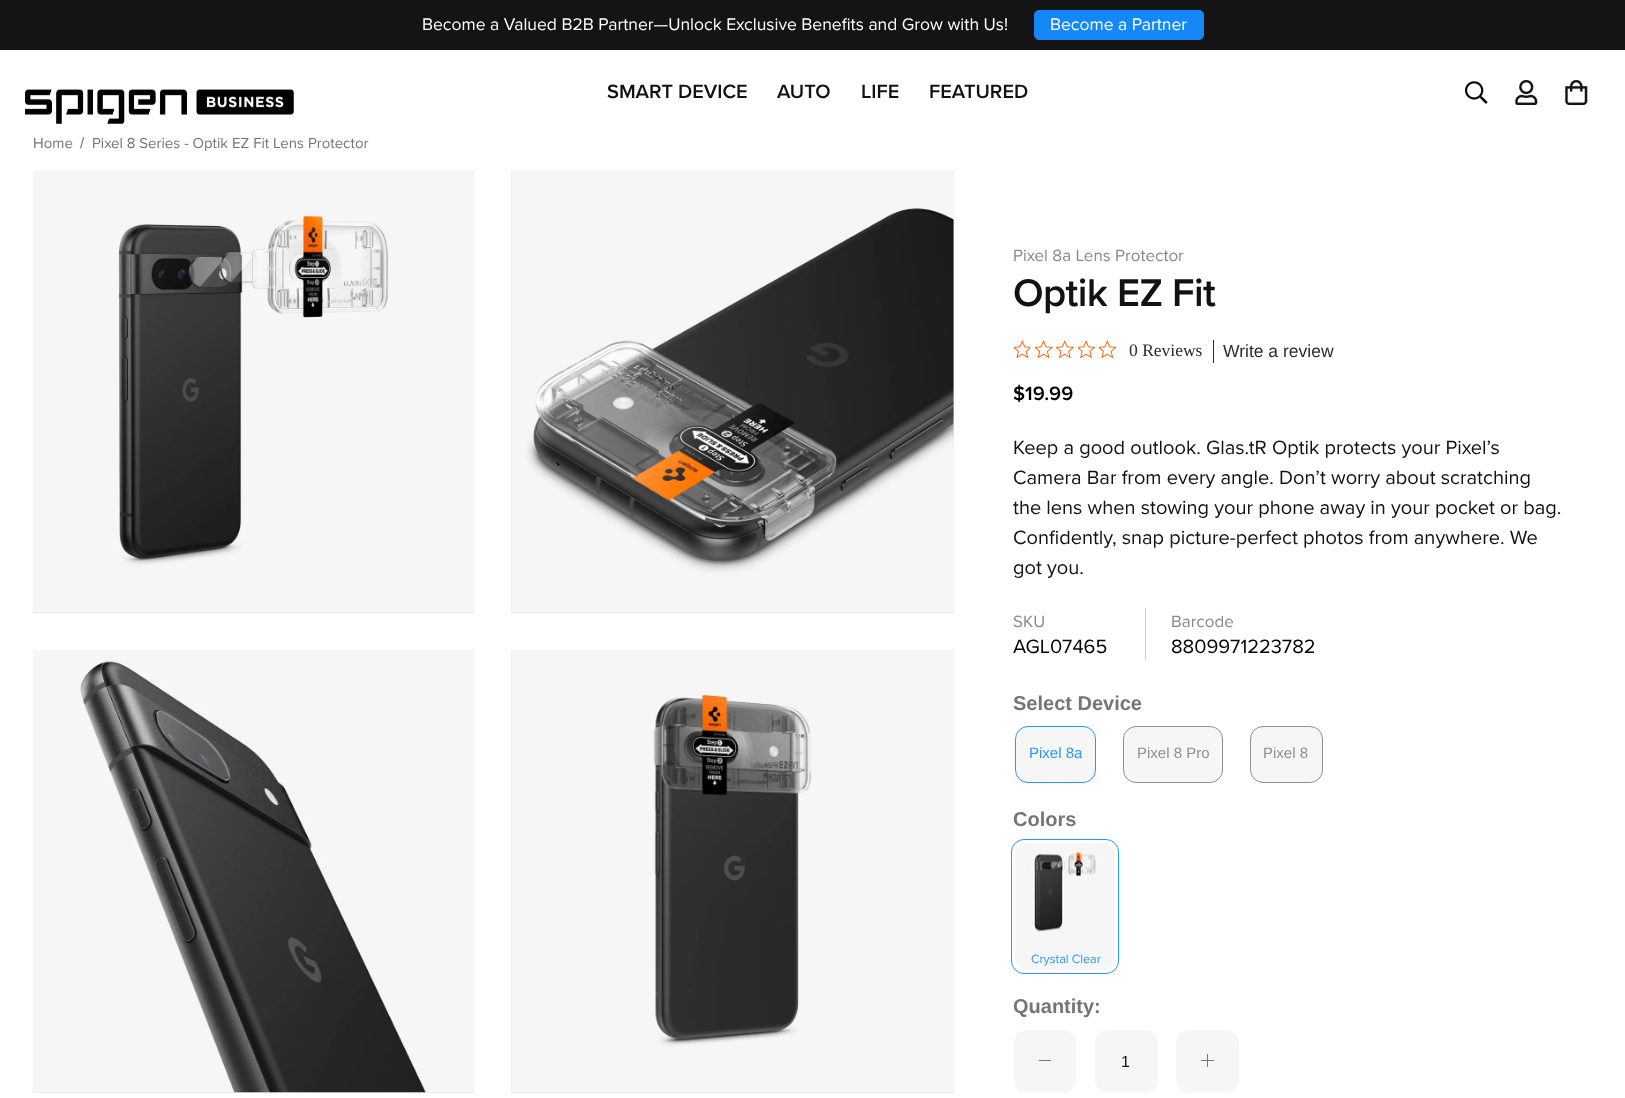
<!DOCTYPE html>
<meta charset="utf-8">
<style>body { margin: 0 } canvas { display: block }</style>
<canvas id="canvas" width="1625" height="1098"></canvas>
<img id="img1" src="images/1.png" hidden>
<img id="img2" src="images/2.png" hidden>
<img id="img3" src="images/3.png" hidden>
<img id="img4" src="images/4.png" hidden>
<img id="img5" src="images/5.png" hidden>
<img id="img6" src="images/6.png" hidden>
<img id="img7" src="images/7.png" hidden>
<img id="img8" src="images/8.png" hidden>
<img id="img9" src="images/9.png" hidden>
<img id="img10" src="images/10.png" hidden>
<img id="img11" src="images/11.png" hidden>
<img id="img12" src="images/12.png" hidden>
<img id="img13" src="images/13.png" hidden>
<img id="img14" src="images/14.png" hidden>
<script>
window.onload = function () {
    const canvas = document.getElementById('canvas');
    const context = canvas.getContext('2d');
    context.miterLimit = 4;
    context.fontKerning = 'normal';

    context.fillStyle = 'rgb(255, 255, 255)';
    context.fillRect(0, 0, 1625, 1098);
    context.fillStyle = 'rgb(20, 20, 20)';
    context.fillRect(0, 0, 1625, 50);
    context.fillStyle = 'rgb(20, 136, 249)';
    context.beginPath();
    context.roundRect(1034.5, 10.5, 169, 29, 4.5);
    context.fill();
    context.strokeStyle = 'rgb(20, 136, 249)';
    context.stroke();
    context.drawImage(document.getElementById('img1'), 25, 89, 269, 35);
    context.drawImage(document.getElementById('img2'), 1465, 81, 23, 23);
    context.drawImage(document.getElementById('img3'), 1515, 80, 23, 25);
    context.drawImage(document.getElementById('img4'), 1565, 80, 23, 25);
    context.fillStyle = 'rgb(234, 234, 234)';
    context.fillRect(33, 171, 441, 442);
    context.drawImage(document.getElementById('img5'), 33, 171, 441, 441);
    context.fillRect(511, 171, 443, 442);
    context.drawImage(document.getElementById('img6'), 511, 171, 443, 441);
    context.fillRect(33, 650, 441, 443);
    context.drawImage(document.getElementById('img7'), 33, 650, 441, 443);
    context.fillRect(511, 650, 443, 443);
    context.drawImage(document.getElementById('img8'), 511, 650, 443, 442);
    context.drawImage(document.getElementById('img9'), 1014, 340, 16, 19);
    context.drawImage(document.getElementById('img10'), 1035, 340, 18, 19);
    context.drawImage(document.getElementById('img11'), 1056, 340, 18, 19);
    context.drawImage(document.getElementById('img12'), 1078, 340, 17, 19);
    context.drawImage(document.getElementById('img13'), 1099, 340, 17, 19);
    context.fillStyle = 'rgb(44, 44, 44)';
    context.fillRect(1213, 340, 1, 23);
    context.fillStyle = 'rgb(206, 206, 206)';
    context.fillRect(1145, 608, 1, 52);
    context.fillStyle = 'rgb(246, 246, 246)';
    context.beginPath();
    context.roundRect(1015.5, 726.5, 80, 56, 12.5);
    context.fill();
    context.strokeStyle = 'rgb(40, 151, 255)';
    context.stroke();
    context.beginPath();
    context.roundRect(1123.5, 726.5, 99, 56, 12.5);
    context.fill();
    context.strokeStyle = 'rgb(144, 144, 144)';
    context.stroke();
    context.beginPath();
    context.roundRect(1250.5, 726.5, 72, 56, 12.5);
    context.fill();
    context.stroke();
    context.beginPath();
    context.roundRect(1015, 843, 100, 127, 13);
    context.fill();
    context.drawImage(document.getElementById('img14'), 1015, 843, 100, 89);
    context.beginPath();
    context.roundRect(1011.5, 839.5, 107, 134, 12.5);
    context.strokeStyle = 'rgb(40, 151, 255)';
    context.stroke();
    context.beginPath();
    context.roundRect(1014, 1030, 62, 63, 13);
    context.fill();
    context.fillStyle = 'rgb(117, 117, 117)';
    context.fillRect(1039, 1060, 12, 1);
    context.fillStyle = 'rgb(246, 246, 246)';
    context.beginPath();
    context.roundRect(1095, 1030, 63, 63, 13);
    context.fill();
    context.beginPath();
    context.roundRect(1176, 1030, 63, 63, 13);
    context.fill();
    context.fillStyle = 'rgb(117, 117, 117)';
    context.fillRect(1207, 1054, 1, 13);
    context.fillRect(1201, 1060, 13, 1);
    context.font = '17.5px Proxima Nova';
    context.fillStyle = 'rgb(255, 255, 255)';
    context.fillText('Become a Valued B2B Partner—Unlock Exclusive Benefits and Grow with Us!', 422, 30);
    context.fillText('Become a Partner', 1050, 30);
    context.font = '600 20px Proxima Nova';
    context.fillStyle = 'rgb(18, 18, 18)';
    context.fillText('SMART DEVICE', 607, 98);
    context.fillText('AUTO', 777, 98);
    context.fillText('LIFE', 861, 98);
    context.fillText('FEATURED', 929, 98);
    context.font = '15px Proxima Nova';
    context.fillStyle = 'rgb(117, 117, 117)';
    context.fillText('Home', 33, 148);
    context.font = '15px Liberation Sans';
    context.fillText('/', 80, 148);
    context.font = '15px Proxima Nova';
    context.fillText('Pixel 8 Series - Optik EZ Fit Lens Protector', 92, 148);
    context.font = '17px Proxima Nova';
    context.fillStyle = 'rgb(137, 137, 137)';
    context.fillText('Pixel 8a Lens Protector', 1013, 261);
    context.letterSpacing = '-0.6px';
    context.font = '600 40px Proxima Nova';
    context.fillStyle = 'rgb(18, 18, 18)';
    context.fillText('Optik EZ Fit', 1013, 306);
    context.letterSpacing = '0px';
    context.font = '17.5px Liberation Serif';
    context.fillStyle = 'rgb(44, 44, 44)';
    context.fillText('0 Reviews', 1129, 356);
    context.font = '17.5px Liberation Sans';
    context.fillText('Write a review', 1223, 357);
    context.font = '600 20px Proxima Nova';
    context.fillStyle = 'rgb(0, 0, 0)';
    context.fillText('$19.99', 1013, 400);
    context.font = '20px Proxima Nova';
    context.fillStyle = 'rgb(18, 18, 18)';
    context.fillText('Keep a good outlook. Glas.tR Optik protects your Pixel’s', 1013, 454);
    context.fillText('Camera Bar from every angle. Don’t worry about scratching', 1013, 484);
    context.fillText('the lens when stowing your phone away in your pocket or bag.', 1013, 514);
    context.fillText('Confidently, snap picture-perfect photos from anywhere. We', 1013, 544);
    context.fillText('got you.', 1013, 574);
    context.font = '17px Proxima Nova';
    context.fillStyle = 'rgb(137, 137, 137)';
    context.fillText('SKU', 1013, 627);
    context.font = '20px Proxima Nova';
    context.fillStyle = 'rgb(0, 0, 0)';
    context.fillText('AGL07465', 1013, 653);
    context.font = '17px Proxima Nova';
    context.fillStyle = 'rgb(137, 137, 137)';
    context.fillText('Barcode', 1171, 627);
    context.font = '20px Proxima Nova';
    context.fillStyle = 'rgb(0, 0, 0)';
    context.fillText('8809971223782', 1171, 653);
    context.font = 'bold 20px Liberation Sans';
    context.fillStyle = 'rgb(117, 117, 117)';
    context.fillText('Select Device', 1013, 710);
    context.font = '15px Liberation Sans';
    context.fillStyle = 'rgb(40, 151, 255)';
    context.fillText('Pixel 8a', 1029, 758);
    context.fillStyle = 'rgb(144, 144, 144)';
    context.fillText('Pixel 8 Pro', 1137, 758);
    context.fillText('Pixel 8', 1263, 758);
    context.font = 'bold 20px Liberation Sans';
    context.fillStyle = 'rgb(117, 117, 117)';
    context.fillText('Colors', 1013, 826);
    context.font = '12.5px Proxima Nova';
    context.fillStyle = 'rgb(40, 151, 255)';
    context.fillText('Crystal Clear', 1031, 963);
    context.font = 'bold 20px Liberation Sans';
    context.fillStyle = 'rgb(117, 117, 117)';
    context.fillText('Quantity:', 1013, 1013);
    context.font = '16px Liberation Sans';
    context.fillStyle = 'rgb(18, 18, 18)';
    context.fillText('1', 1121, 1067);
};
</script>
